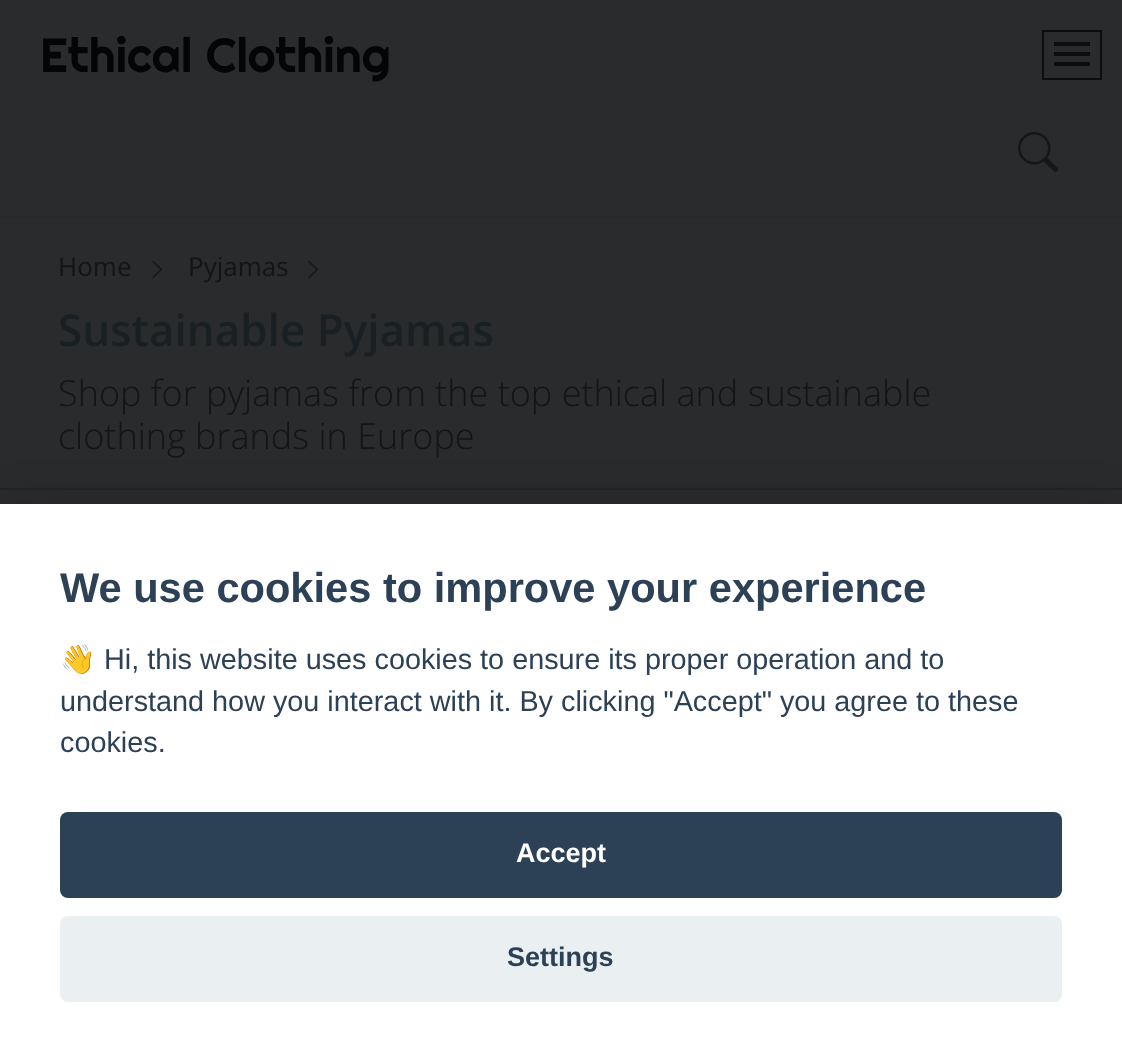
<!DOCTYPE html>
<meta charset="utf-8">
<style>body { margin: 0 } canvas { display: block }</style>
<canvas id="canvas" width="1122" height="1062"></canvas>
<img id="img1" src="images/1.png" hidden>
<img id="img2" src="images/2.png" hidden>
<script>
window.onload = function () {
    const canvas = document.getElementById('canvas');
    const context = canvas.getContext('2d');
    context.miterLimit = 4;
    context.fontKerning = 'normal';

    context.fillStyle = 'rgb(42, 43, 45)';
    context.fillRect(0, 0, 1122, 1062);
    context.fillStyle = 'rgb(38, 40, 43)';
    context.fillRect(0, 216, 1122, 2);
    context.strokeStyle = 'rgb(11, 13, 14)';
    context.lineWidth = 2;
    context.strokeRect(1043, 31, 58, 48);
    context.fillStyle = 'rgb(11, 13, 14)';
    context.fillRect(1054, 42, 36, 4);
    context.fillRect(1054, 52, 36, 4);
    context.fillRect(1054, 62, 36, 4);
    context.drawImage(document.getElementById('img1'), 1018, 132, 40, 40);
    context.fillStyle = 'rgb(30, 36, 38)';
    context.fillRect(0, 488, 1122, 2);
    context.drawImage(document.getElementById('img2'), 152, 260, 11, 19);
    context.drawImage(document.getElementById('img2'), 308, 260, 11, 19);
    context.fillStyle = 'rgba(2, 2, 3, 0.28)';
    context.filter = 'blur(30px)';
    context.beginPath();
    context.rect(0, 524, 1122, 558);
    context.fill();
    context.filter = 'none';
    context.fillStyle = 'rgb(255, 255, 255)';
    context.fillRect(0, 504, 1122, 558);
    context.fillStyle = 'rgb(45, 65, 86)';
    context.beginPath();
    context.roundRect(60, 812, 1002, 86, 8);
    context.fill();
    context.fillStyle = 'rgb(234, 239, 242)';
    context.beginPath();
    context.roundRect(60, 916, 1002, 86, 8);
    context.fill();
    context.font = '48px Righteous';
    context.fillStyle = 'rgb(3, 5, 7)';
    context.fillText('Ethical Clothing', 40, 72);
    context.font = '26px Open Sans';
    context.fillStyle = 'rgb(19, 20, 22)';
    context.fillText('Home', 58, 276);
    context.fillText('Pyjamas', 188, 276);
    context.font = '600 44px Open Sans';
    context.fillStyle = 'rgb(25, 32, 35)';
    context.fillText('Sustainable Pyjamas', 58, 346);
    context.font = '300 36px Open Sans';
    context.fillStyle = 'rgb(19, 20, 22)';
    context.fillText('Shop for pyjamas from the top ethical and sustainable', 58, 406);
    context.fillText('clothing brands in Europe', 58, 449);
    context.font = 'bold 41.6px Liberation Sans';
    context.fillStyle = 'rgb(45, 65, 86)';
    context.fillText('We use cookies to improve your experience', 60, 602);
    context.font = '28.8px Noto Color Emoji';
    context.fillText('👋', 60, 669);
    context.font = '28.8px Liberation Sans';
    context.fillText('Hi, this website uses cookies to ensure its proper operation and to', 104, 669);
    context.fillText('understand how you interact with it. By clicking "Accept" you agree to these', 60, 711);
    context.fillText('cookies.', 60, 752);
    context.font = 'bold 27px Liberation Sans';
    context.fillStyle = 'rgb(255, 255, 255)';
    context.fillText('Accept', 516, 862);
    context.fillStyle = 'rgb(45, 65, 86)';
    context.fillText('Settings', 507, 966);
};
</script>
